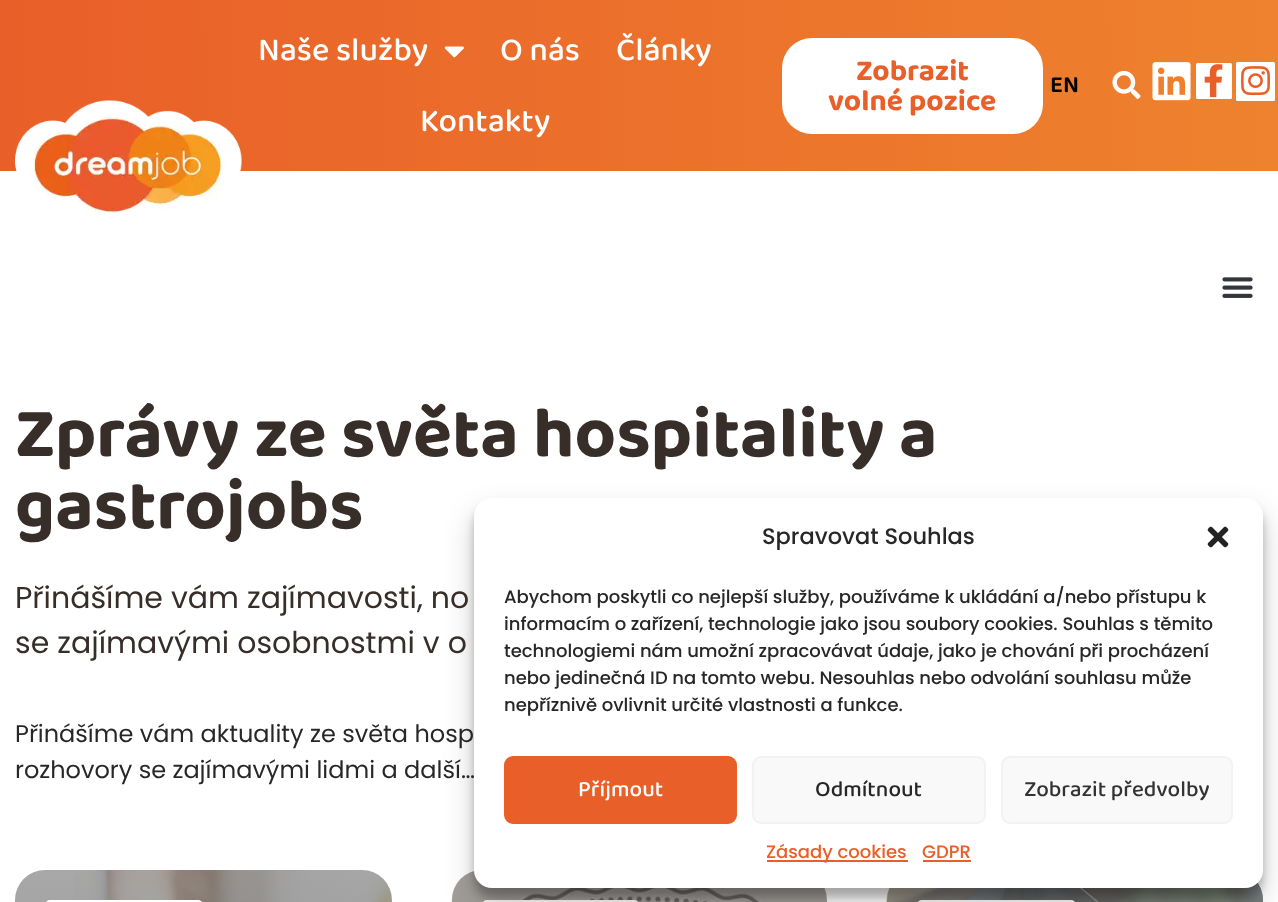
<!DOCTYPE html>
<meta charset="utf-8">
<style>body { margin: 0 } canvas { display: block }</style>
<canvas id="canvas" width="1278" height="902"></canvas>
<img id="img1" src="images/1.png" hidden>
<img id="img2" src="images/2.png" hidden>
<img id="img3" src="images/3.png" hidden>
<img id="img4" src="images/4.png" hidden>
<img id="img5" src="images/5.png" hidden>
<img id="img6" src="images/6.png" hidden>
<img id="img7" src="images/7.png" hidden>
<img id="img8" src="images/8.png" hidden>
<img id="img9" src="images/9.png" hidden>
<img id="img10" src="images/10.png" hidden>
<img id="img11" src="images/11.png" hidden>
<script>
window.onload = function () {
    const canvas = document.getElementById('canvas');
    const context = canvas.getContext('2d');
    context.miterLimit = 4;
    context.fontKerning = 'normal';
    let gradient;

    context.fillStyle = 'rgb(255, 255, 255)';
    context.fillRect(0, 0, 1278, 902);
    gradient = context.createLinearGradient(0, 86, 1278, 85);
    gradient.addColorStop(0, 'rgb(233, 95, 41)');
    gradient.addColorStop(1, 'rgb(238, 130, 46)');
    context.fillStyle = gradient;
    context.fillRect(0, 0, 1278, 171);
    context.drawImage(document.getElementById('img1'), 444, 46, 20, 12);
    context.drawImage(document.getElementById('img2'), 15, 100, 227, 115);
    context.fillStyle = 'rgb(255, 255, 255)';
    context.beginPath();
    context.roundRect(782, 38, 261, 96, 30);
    context.fill();
    context.drawImage(document.getElementById('img3'), 1112, 70, 29, 29);
    context.drawImage(document.getElementById('img4'), 1152, 62, 39, 39);
    context.beginPath();
    context.roundRect(1196, 63, 36, 36, 1.5);
    context.fill();
    context.drawImage(document.getElementById('img5'), 1204, 64, 19, 34);
    context.beginPath();
    context.roundRect(1236, 62, 39, 39, 1.5);
    context.fill();
    context.drawImage(document.getElementById('img6'), 1241, 66, 29, 30);
    context.drawImage(document.getElementById('img7'), 1222, 277, 31, 21);
    context.drawImage(document.getElementById('img8'), 73, 870, 319, 32);
    gradient = context.createLinearGradient(203, 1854, 203, 870);
    gradient.addColorStop(0, 'rgba(0, 0, 0, 0.7)');
    gradient.addColorStop(1, 'rgba(131, 131, 131, 0.7)');
    context.fillStyle = gradient;
    context.beginPath();
    context.roundRect(15, 870, 377, 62, 30);
    context.fill();
    context.fillStyle = 'rgb(255, 255, 255)';
    context.beginPath();
    context.roundRect(45, 900, 158, 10, 8);
    context.fill();
    context.drawImage(document.getElementById('img9'), 451, 870, 376, 32);
    gradient = context.createLinearGradient(639, 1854, 639, 870);
    gradient.addColorStop(0, 'rgba(0, 0, 0, 0.7)');
    gradient.addColorStop(1, 'rgba(131, 131, 131, 0.7)');
    context.fillStyle = gradient;
    context.beginPath();
    context.roundRect(452, 870, 375, 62, 30);
    context.fill();
    context.fillStyle = 'rgb(255, 255, 255)';
    context.beginPath();
    context.roundRect(482, 900, 157, 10, 8);
    context.fill();
    context.drawImage(document.getElementById('img10'), 886, 882, 377, 20);
    gradient = context.createLinearGradient(1075, 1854, 1075, 870);
    gradient.addColorStop(0, 'rgba(0, 0, 0, 0.7)');
    gradient.addColorStop(1, 'rgba(131, 131, 131, 0.7)');
    context.fillStyle = gradient;
    context.beginPath();
    context.roundRect(887, 870, 376, 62, 30);
    context.fill();
    context.fillStyle = 'rgb(255, 255, 255)';
    context.beginPath();
    context.roundRect(917, 900, 159, 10, 8);
    context.fill();
    context.fillStyle = 'rgba(0, 0, 0, 0.23)';
    context.filter = 'blur(4.5px)';
    context.beginPath();
    context.roundRect(474, 507, 789, 390, 18);
    context.fill();
    context.filter = 'none';
    context.fillStyle = 'rgba(0, 0, 0, 0.19)';
    context.filter = 'blur(15px)';
    context.beginPath();
    context.roundRect(474, 513, 789, 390, 18);
    context.fill();
    context.filter = 'none';
    context.fillStyle = 'rgb(255, 255, 255)';
    context.beginPath();
    context.roundRect(474, 498, 789, 390, 18);
    context.fill();
    context.drawImage(document.getElementById('img11'), 1207, 526, 22, 22);
    context.fillStyle = 'rgb(233, 95, 41)';
    context.beginPath();
    context.roundRect(505, 757, 231, 66, 8);
    context.fill();
    context.strokeStyle = 'rgb(233, 95, 41)';
    context.lineWidth = 2;
    context.stroke();
    context.fillStyle = 'rgb(249, 249, 249)';
    context.beginPath();
    context.roundRect(753, 757, 232, 66, 8);
    context.fill();
    context.strokeStyle = 'rgb(242, 242, 242)';
    context.stroke();
    context.beginPath();
    context.roundRect(1002, 757, 230, 66, 8);
    context.fill();
    context.stroke();
    context.fillStyle = 'rgb(233, 95, 41)';
    context.fillRect(767, 860, 141, 2);
    context.fillRect(923, 860, 48, 2);
    context.font = '500 33px "Baloo 2"';
    context.fillStyle = 'rgb(255, 255, 255)';
    context.fillText('Naše služby', 258, 60);
    context.fillText('O nás', 500, 60);
    context.fillText('Články', 616, 60);
    context.fillText('Kontakty', 420, 131);
    context.font = 'bold 30px "Baloo 2"';
    context.fillStyle = 'rgb(233, 95, 41)';
    context.fillText('Zobrazit', 856, 80);
    context.fillText('volné pozice', 828, 110);
    context.font = '600 24px "Baloo 2"';
    context.fillStyle = 'rgb(0, 0, 0)';
    context.fillText('EN', 1050, 92);
    context.font = 'bold 72px "Baloo 2"';
    context.fillStyle = 'rgb(55, 46, 42)';
    context.fillText('Zprávy ze světa hospitality a', 15, 456);
    context.fillText('gastrojobs', 15, 528);
    context.font = '30px Poppins';
    context.fillText('Přinášíme vám zajímavosti, no', 15, 608);
    context.fillText('se zajímavými osobnostmi v o', 15, 653);
    context.font = '24px Poppins';
    context.fillStyle = 'rgb(39, 39, 39)';
    context.fillText('Přinášíme vám aktuality ze světa hosp', 15, 742);
    context.fillText('rozhovory se zajímavými lidmi a další…', 15, 778);
    context.font = '500 22.5px Poppins';
    context.fillText('Spravovat Souhlas', 762, 544);
    context.font = '500 18px Poppins';
    context.fillText('Abychom poskytli co nejlepší služby, používáme k ukládání a/nebo přístupu k', 504, 603);
    context.fillText('informacím o zařízení, technologie jako jsou soubory cookies. Souhlas s těmito', 504, 630);
    context.fillText('technologiemi nám umožní zpracovávat údaje, jako je chování při procházení', 504, 657);
    context.fillText('nebo jedinečná ID na tomto webu. Nesouhlas nebo odvolání souhlasu může', 504, 684);
    context.fillText('nepříznivě ovlivnit určité vlastnosti a funkce.', 504, 711);
    context.font = '500 22.5px "Baloo 2"';
    context.fillStyle = 'rgb(255, 255, 255)';
    context.fillText('Příjmout', 578, 796);
    context.fillStyle = 'rgb(39, 39, 39)';
    context.fillText('Odmítnout', 815, 796);
    context.fillStyle = 'rgb(51, 51, 51)';
    context.fillText('Zobrazit předvolby', 1024, 796);
    context.font = '500 18px Poppins';
    context.fillStyle = 'rgb(233, 95, 41)';
    context.fillText('Zásady cookies', 766, 858);
    context.fillText('GDPR', 922, 858);
};
</script>
